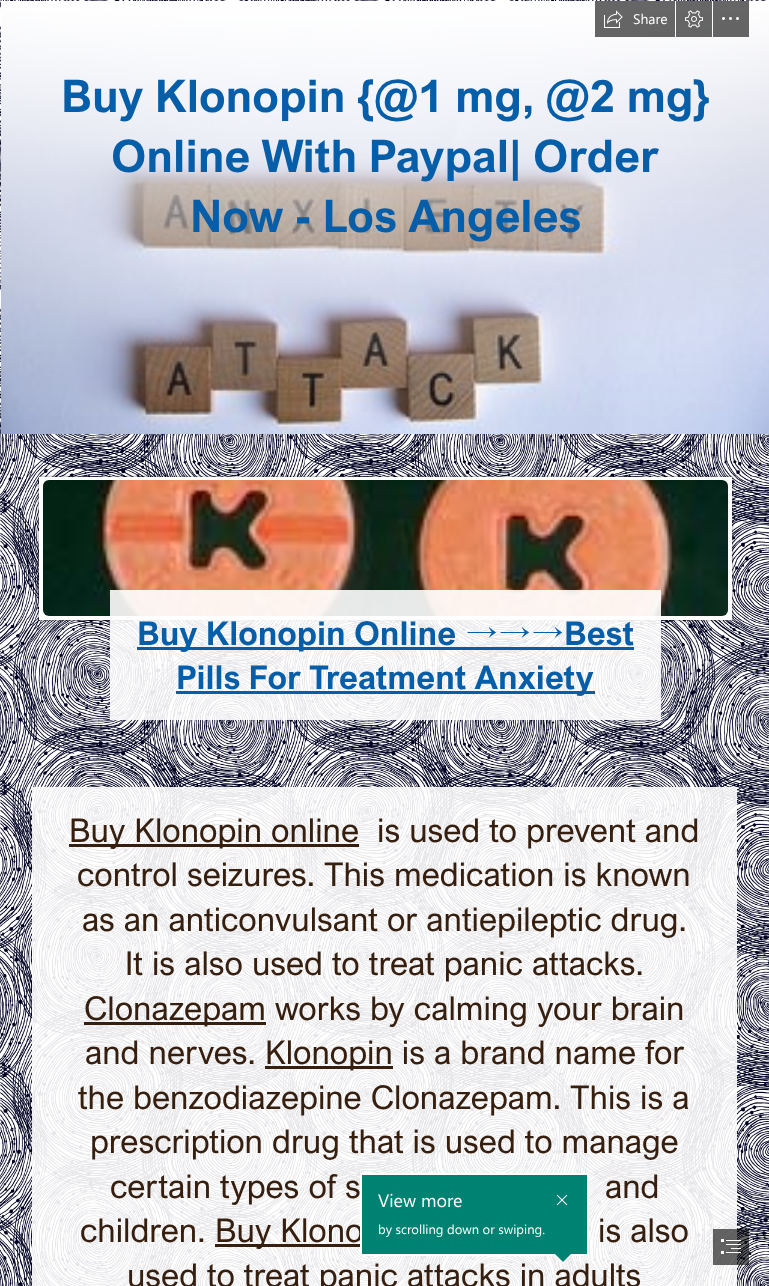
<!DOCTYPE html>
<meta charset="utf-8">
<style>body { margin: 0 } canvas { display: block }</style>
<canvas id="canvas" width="769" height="1286"></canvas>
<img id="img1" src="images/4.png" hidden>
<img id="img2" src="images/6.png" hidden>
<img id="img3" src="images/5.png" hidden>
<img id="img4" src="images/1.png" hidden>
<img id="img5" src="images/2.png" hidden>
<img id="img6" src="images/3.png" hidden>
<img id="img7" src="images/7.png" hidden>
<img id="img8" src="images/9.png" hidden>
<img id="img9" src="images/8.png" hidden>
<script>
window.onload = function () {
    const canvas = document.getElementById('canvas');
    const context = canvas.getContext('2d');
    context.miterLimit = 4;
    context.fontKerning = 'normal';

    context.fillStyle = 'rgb(255, 255, 255)';
    context.fillRect(0, 0, 769, 1286);
    context.drawImage(document.getElementById('img1'), 0, 0, 769, 1286);
    context.drawImage(document.getElementById('img2'), 1, 5, 768, 429);
    context.drawImage(document.getElementById('img3'), 1, 1, 768, 415);
    context.fillStyle = 'rgba(0, 0, 0, 0.6)';
    context.fillRect(595, 1, 80, 36);
    context.drawImage(document.getElementById('img4'), 604, 10, 19, 18);
    context.fillRect(676, 1, 36, 36);
    context.drawImage(document.getElementById('img5'), 685, 10, 18, 18);
    context.fillRect(713, 1, 36, 36);
    context.drawImage(document.getElementById('img6'), 722, 17, 17, 3);
    context.fillStyle = 'rgba(0, 0, 0, 0.5)';
    context.filter = 'blur(1.5px)';
    context.beginPath();
    context.rect(39, 477, 693, 143);
    context.fill();
    context.filter = 'none';
    context.fillStyle = 'rgb(255, 255, 255)';
    context.fillRect(39, 477, 693, 143);
    context.drawImage(document.getElementById('img7'), 43, 480, 685, 136);
    context.fillStyle = 'rgba(255, 255, 255, 0.9)';
    context.fillRect(110, 590, 551, 130);
    context.fillStyle = 'rgb(7, 94, 168)';
    context.fillRect(137, 647, 497, 3);
    context.fillRect(176, 691, 419, 3);
    context.fillStyle = 'rgba(255, 255, 255, 0.9)';
    context.fillRect(32, 787, 705, 499);
    context.fillStyle = 'rgb(54, 31, 15)';
    context.fillRect(69, 844, 290, 3);
    context.fillRect(84, 1022, 182, 3);
    context.fillRect(265, 1066, 128, 3);
    context.fillRect(215, 1244, 145, 3);
    context.fillStyle = 'rgba(0, 0, 0, 0.6)';
    context.fillRect(713, 1229, 36, 36);
    context.drawImage(document.getElementById('img8'), 721, 1239, 20, 15);
    context.font = '14px Segoe UI';
    context.fillStyle = 'rgb(255, 255, 255)';
    context.fillText('Share', 633, 24);
    context.font = 'bold 45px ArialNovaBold';
    context.fillStyle = 'rgb(7, 94, 168)';
    context.fillText('Buy Klonopin {@1 mg, @2 mg}', 61, 112);
    context.fillText('Online With Paypal| Order', 111, 172);
    context.fillText('Now - Los Angeles', 190, 232);
    context.font = 'bold 33px ArialNovaBold';
    context.fillText('Buy Klonopin Online', 137, 645);
    context.font = 'bold 33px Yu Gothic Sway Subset';
    context.fillText('→→→', 465, 645);
    context.font = 'bold 33px ArialNovaBold';
    context.fillText('Best', 564, 645);
    context.fillText('Pills For Treatment Anxiety', 176, 689);
    context.font = '33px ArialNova';
    context.fillStyle = 'rgb(54, 31, 15)';
    context.fillText('Buy Klonopin online', 69, 842);
    context.fillText('is used to prevent and', 377, 842);
    context.fillText('control seizures. This medication is known', 77, 886);
    context.fillText('as an anticonvulsant or antiepileptic drug.', 82, 931);
    context.fillText('It is also used to treat panic attacks.', 125, 975);
    context.fillText('Clonazepam works by calming your brain', 84, 1020);
    context.fillText('and nerves.', 85, 1064);
    context.fillText('Klonopin is a brand name for', 265, 1064);
    context.fillText('the benzodiazepine Clonazepam. This is a', 78, 1109);
    context.fillText('prescription drug that is used to manage', 90, 1153);
    context.fillText('certain types of s', 110, 1198);
    context.fillText('and', 605, 1198);
    context.fillText('children.', 80, 1242);
    context.fillText('Buy Klono', 215, 1242);
    context.fillText('is also', 598, 1242);
    context.fillText('used to treat panic attacks in adults', 127, 1287);
    context.fillStyle = 'rgb(0, 130, 114)';
    context.beginPath();
    context.rect(361, 1174, 227, 81);
    context.fill();
    context.strokeStyle = 'rgb(255, 255, 255)';
    context.lineWidth = 2;
    context.stroke();
    context.font = '18px Segoe UI';
    context.fillStyle = 'rgb(255, 255, 255)';
    context.fillText('View more', 378, 1207);
    context.font = '13px Segoe UI';
    context.fillText('by scrolling down or swiping.', 378, 1234);
    context.drawImage(document.getElementById('img9'), 556, 1194, 12, 12);
    context.beginPath();
    context.moveTo(553, 1254);
    context.lineTo(573, 1254);
    context.lineTo(563, 1264);
    context.closePath();
    context.fill();
    context.fillStyle = 'rgb(0, 130, 114)';
    context.beginPath();
    context.moveTo(555, 1254);
    context.lineTo(571, 1254);
    context.lineTo(563, 1262);
    context.closePath();
    context.fill();
};
</script>
